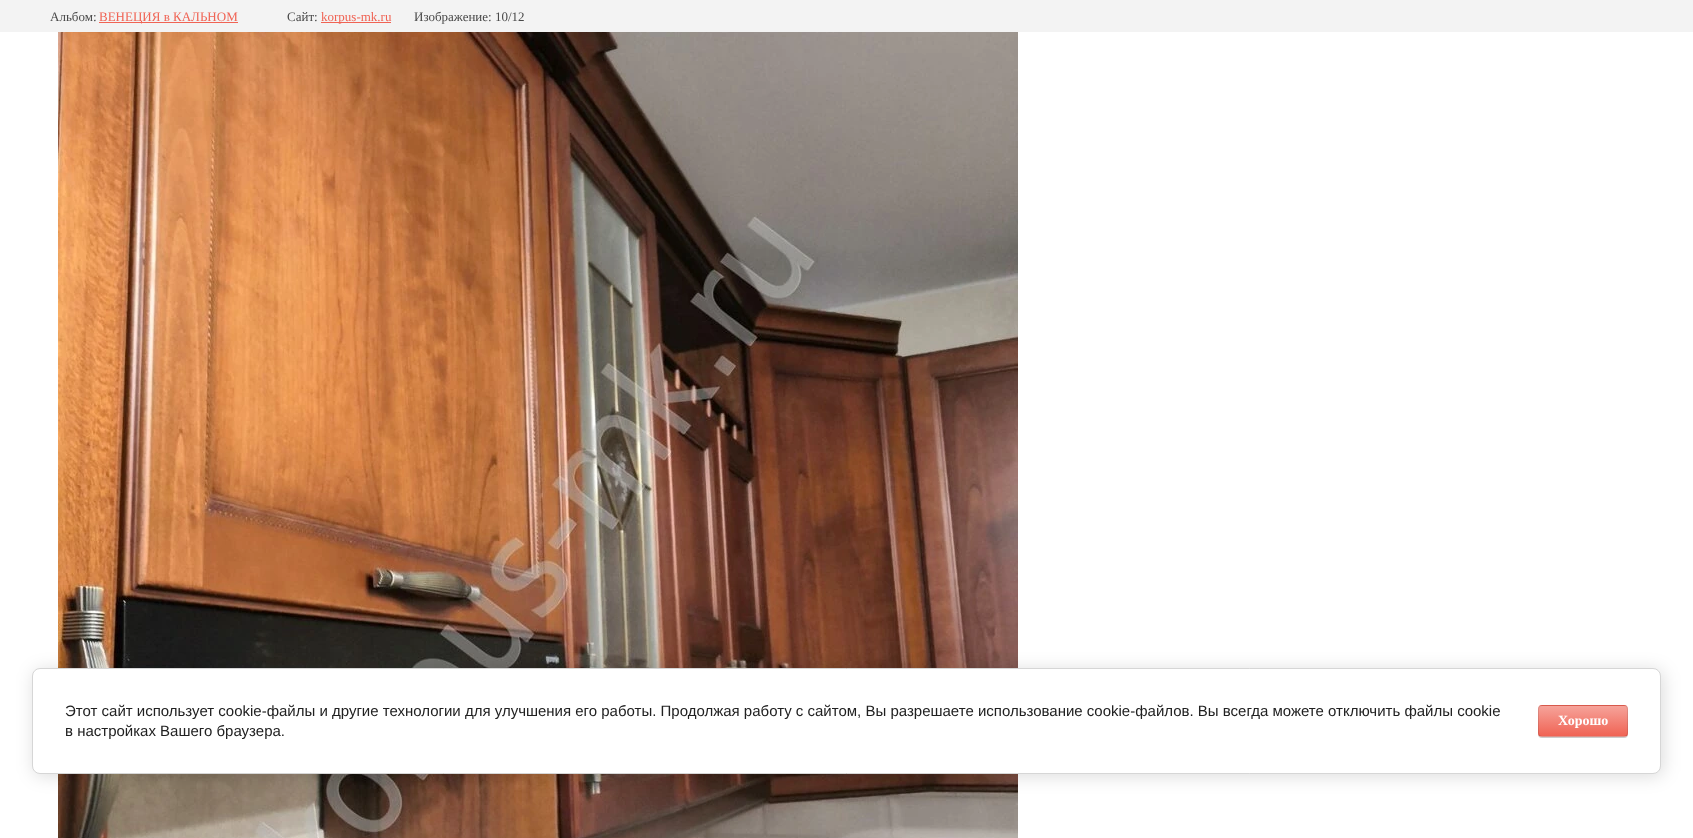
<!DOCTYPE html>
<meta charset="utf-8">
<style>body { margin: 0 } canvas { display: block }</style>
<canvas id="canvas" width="1693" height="838"></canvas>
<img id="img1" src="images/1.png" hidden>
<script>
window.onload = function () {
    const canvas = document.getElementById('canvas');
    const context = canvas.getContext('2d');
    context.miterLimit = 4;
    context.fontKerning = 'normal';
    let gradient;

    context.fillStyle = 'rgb(255, 255, 255)';
    context.fillRect(0, 0, 1693, 838);
    context.fillStyle = 'rgb(243, 243, 243)';
    context.fillRect(0, 0, 1693, 32);
    context.fillStyle = 'rgb(240, 99, 84)';
    context.fillRect(99, 22, 139, 1);
    context.fillRect(321, 22, 70, 1);
    context.drawImage(document.getElementById('img1'), 58, 32, 960, 806);
    context.fillStyle = 'rgba(0, 0, 0, 0.14)';
    context.filter = 'blur(9px)';
    context.beginPath();
    context.roundRect(34, 670, 1629, 106, 8);
    context.fill();
    context.filter = 'none';
    context.fillStyle = 'rgb(255, 255, 255)';
    context.beginPath();
    context.roundRect(32.5, 668.5, 1628, 105, 7.5);
    context.fill();
    context.strokeStyle = 'rgb(214, 214, 214)';
    context.stroke();
    context.fillStyle = 'rgba(0, 0, 0, 0.2)';
    context.filter = 'blur(0.5px)';
    context.beginPath();
    context.roundRect(1538, 706, 90, 32, 4);
    context.fill();
    context.filter = 'none';
    context.save();
    context.beginPath();
    context.roundRect(1538, 705, 90, 32, 4);
    context.clip();
    gradient = context.createLinearGradient(1583, 676, 1583, 706);
    gradient.addColorStop(0, 'rgb(246, 163, 154)');
    gradient.addColorStop(1, 'rgb(240, 99, 84)');
    context.fillStyle = gradient;
    context.fillRect(1538, 705, 90, 1);
    gradient = context.createLinearGradient(1583, 706, 1583, 736);
    gradient.addColorStop(0, 'rgb(246, 163, 154)');
    gradient.addColorStop(1, 'rgb(240, 99, 84)');
    context.fillStyle = gradient;
    context.fillRect(1538, 706, 90, 30);
    gradient = context.createLinearGradient(1583, 736, 1583, 766);
    gradient.addColorStop(0, 'rgb(246, 163, 154)');
    gradient.addColorStop(1, 'rgb(240, 99, 84)');
    context.fillStyle = gradient;
    context.fillRect(1538, 736, 90, 1);
    context.restore();
    context.beginPath();
    context.roundRect(1538.5, 705.5, 89, 31, 3.5);
    context.strokeStyle = 'rgba(0, 0, 0, 0.1)';
    context.stroke();
    context.font = '13px Liberation Serif';
    context.fillStyle = 'rgb(72, 72, 72)';
    context.fillText('Альбом:', 50, 21);
    context.fillStyle = 'rgb(240, 99, 84)';
    context.fillText('ВЕНЕЦИЯ в КАЛЬНОМ', 99, 21);
    context.fillStyle = 'rgb(72, 72, 72)';
    context.fillText('Сайт:', 287, 21);
    context.fillStyle = 'rgb(240, 99, 84)';
    context.fillText('korpus-mk.ru', 321, 21);
    context.fillStyle = 'rgb(72, 72, 72)';
    context.fillText('Изображение: 10/12', 414, 21);
    context.font = '15px Liberation Sans';
    context.fillStyle = 'rgb(33, 33, 33)';
    context.fillText('Этот сайт использует cookie-файлы и другие технологии для улучшения его работы. Продолжая работу с сайтом, Вы разрешаете использование cookie-файлов. Вы всегда можете отключить файлы cookie', 65, 716);
    context.fillText('в настройках Вашего браузера.', 65, 736);
    context.font = 'bold 14px Liberation Serif';
    context.fillStyle = 'rgb(255, 255, 255)';
    context.fillText('Хорошо', 1558, 725);
};
</script>
